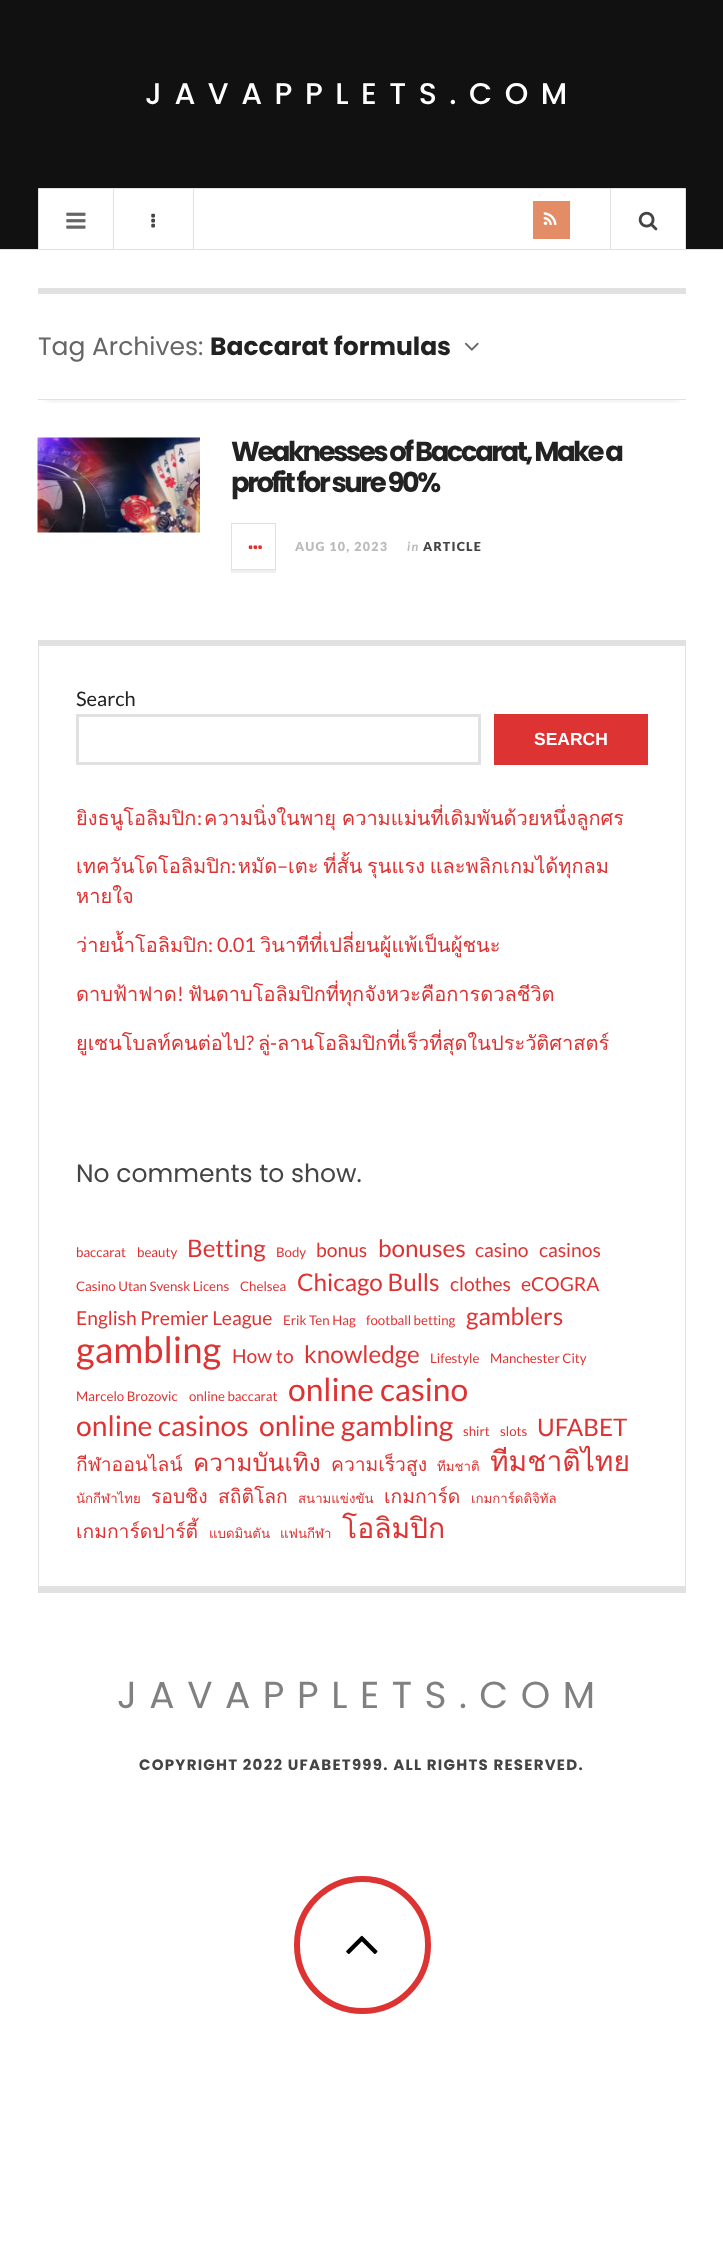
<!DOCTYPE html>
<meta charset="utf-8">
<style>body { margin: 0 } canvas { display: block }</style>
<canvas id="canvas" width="723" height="2241"></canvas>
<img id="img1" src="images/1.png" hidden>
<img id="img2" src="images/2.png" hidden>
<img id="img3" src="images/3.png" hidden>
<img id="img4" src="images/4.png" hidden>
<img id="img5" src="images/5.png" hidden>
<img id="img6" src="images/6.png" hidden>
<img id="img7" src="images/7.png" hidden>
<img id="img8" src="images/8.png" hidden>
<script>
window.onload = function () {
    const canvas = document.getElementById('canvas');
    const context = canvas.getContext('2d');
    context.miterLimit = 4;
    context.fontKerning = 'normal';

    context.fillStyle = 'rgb(255, 255, 255)';
    context.fillRect(0, 0, 723, 2241);
    context.fillStyle = 'rgb(17, 17, 17)';
    context.fillRect(0, 0, 723, 249);
    context.fillStyle = 'rgb(225, 225, 225)';
    context.fillRect(0, 249, 723, 1);
    context.fillStyle = 'rgb(255, 255, 255)';
    context.beginPath();
    context.rect(38.5, 188.5, 647, 61);
    context.fill();
    context.strokeStyle = 'rgb(225, 225, 225)';
    context.stroke();
    context.fillStyle = 'rgb(225, 225, 225)';
    context.fillRect(113, 189, 1, 60);
    context.drawImage(document.getElementById('img1'), 66, 212, 20, 17);
    context.fillRect(193, 189, 1, 60);
    context.drawImage(document.getElementById('img2'), 151, 213, 4, 15);
    context.fillStyle = 'rgb(227, 140, 101)';
    context.fillRect(533, 201, 37, 38);
    context.drawImage(document.getElementById('img3'), 543, 212, 14, 13);
    context.fillStyle = 'rgb(225, 225, 225)';
    context.fillRect(610, 189, 1, 60);
    context.drawImage(document.getElementById('img4'), 638, 211, 20, 20);
    context.fillRect(38, 288, 648, 6);
    context.fillRect(38, 1586, 648, 7);
    context.save();
    context.beginPath();
    context.rect(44, 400, 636, 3);
    context.clip();
    context.fillStyle = 'rgba(0, 0, 0, 0.1)';
    context.filter = 'blur(4px)';
    context.beginPath();
    context.rect(45, 309, 634, 91);
    context.fill();
    context.filter = 'none';
    context.restore();
    context.fillRect(38, 399, 648, 1);
    context.drawImage(document.getElementById('img5'), 464, 342, 15, 9);
    context.drawImage(document.getElementById('img6'), 37, 437, 163, 96);
    context.fillStyle = 'rgb(240, 240, 240)';
    context.beginPath();
    context.moveTo(231, 525);
    context.lineTo(231, 573);
    context.lineTo(276, 573);
    context.lineTo(276, 570);
    context.lineTo(231, 570);
    context.closePath();
    context.fill();
    context.strokeRect(231.5, 523.5, 44, 46);
    context.drawImage(document.getElementById('img7'), 248, 545, 14, 4);
    context.fillStyle = 'rgb(225, 225, 225)';
    context.fillRect(38, 640, 648, 6);
    context.fillRect(685, 640, 1, 946);
    context.fillRect(38, 640, 1, 946);
    context.lineWidth = 3;
    context.strokeRect(77.5, 715.5, 402, 48);
    context.fillStyle = 'rgb(221, 51, 51)';
    context.fillRect(494, 714, 154, 51);
    context.beginPath();
    context.roundRect(297, 1879, 131, 132, 65.5);
    context.strokeStyle = 'rgb(221, 51, 51)';
    context.lineWidth = 6;
    context.stroke();
    context.drawImage(document.getElementById('img8'), 346, 1935, 32, 19);
    context.letterSpacing = '12.5px';
    context.font = '500 30px Poppins';
    context.fillStyle = 'rgb(255, 255, 255)';
    context.fillText('JAVAPPLETS.COM', 145, 104);
    context.letterSpacing = '0px';
    context.font = '25px Poppins';
    context.fillStyle = 'rgb(102, 102, 102)';
    context.fillText('Tag Archives:', 38, 355);
    context.font = 'bold 25px Poppins';
    context.fillStyle = 'rgb(34, 34, 34)';
    context.fillText('Baccarat formulas', 210, 355);
    context.letterSpacing = '-2.5px';
    context.font = 'bold 27.5px Poppins';
    context.fillText('Weaknesses of Baccarat, Make a', 231, 461);
    context.fillText('profit for sure 90%', 231, 492);
    context.letterSpacing = '1.25px';
    context.font = '900 12.5px Lato';
    context.fillStyle = 'rgb(187, 187, 187)';
    context.fillText('AUG 10, 2023', 295, 551);
    context.font = 'italic bold 12.5px Lato';
    context.fillText('in', 407, 551);
    context.font = '900 12.5px Lato';
    context.fillStyle = 'rgb(68, 68, 68)';
    context.fillText('ARTICLE', 423, 551);
    context.letterSpacing = '0px';
    context.font = '20px Lato';
    context.fillStyle = 'rgb(34, 34, 34)';
    context.fillText('Search', 76, 706);
    context.font = 'bold 17.5px Liberation Sans';
    context.fillStyle = 'rgb(255, 255, 255)';
    context.fillText('SEARCH', 534, 745);
    context.font = '20px Loma';
    context.fillStyle = 'rgb(221, 51, 51)';
    context.fillText('ยิงธนูโอลิมปิก', 76, 825);
    context.font = '20px Lato';
    context.fillText(':', 197, 825);
    context.wordSpacing = '-1px';
    context.font = '20px Loma';
    context.fillText('ความนิ่งในพายุ ความแม่นที่เดิมพันด้วยหนึ่งลูกศร', 204, 825);
    context.wordSpacing = '0px';
    context.fillText('เทควันโดโอลิมปิก หมัด', 76, 873);
    context.wordSpacing = '-2px';
    context.fillText('เตะ ที่สั้น รุนแรง และพลิกเกมได้ทุกลม', 288, 873);
    context.wordSpacing = '0px';
    context.font = '20px Lato';
    context.fillText(':', 231, 873);
    context.fillText('–', 277, 873);
    context.font = '20px Loma';
    context.fillText('หายใจ', 76, 903);
    context.fillText('ว่ายน้ำโอลิมปิก', 76, 952);
    context.font = '20px Lato';
    context.fillText(': 0.01', 208, 952);
    context.font = '20px Loma';
    context.fillText('วินาทีที่เปลี่ยนผู้แพ้เป็นผู้ชนะ', 260, 952);
    context.fillText('ดาบฟ้าฟาด', 76, 1001);
    context.font = '20px Lato';
    context.fillText('!', 177, 1001);
    context.font = '20px Loma';
    context.fillText('ฟันดาบโอลิมปิกที่ทุกจังหวะคือการดวลชีวิต', 188, 1001);
    context.fillText('ยูเซนโบลท์คนต่อไป', 76, 1050);
    context.font = '20px Lato';
    context.fillText('?', 246, 1050);
    context.font = '20px Loma';
    context.fillText('ลู่ ลานโอลิมปิกที่เร็วที่สุดในประวัติศาสตร์', 258, 1050);
    context.font = '20px Lato';
    context.fillText('-', 270, 1050);
    context.font = '25px Poppins';
    context.fillStyle = 'rgb(68, 68, 68)';
    context.fillText('No comments to show.', 76, 1182);
    context.font = '13.25px Lato';
    context.fillStyle = 'rgb(221, 51, 51)';
    context.fillText('baccarat', 76, 1257);
    context.fillText('beauty', 137, 1257);
    context.font = '24.25px Lato';
    context.fillText('Betting', 187, 1257);
    context.font = '13.25px Lato';
    context.fillText('Body', 276, 1257);
    context.font = '19.25px Lato';
    context.fillText('bonus', 316, 1257);
    context.font = '24.25px Lato';
    context.fillText('bonuses', 378, 1257);
    context.font = '19.25px Lato';
    context.fillText('casino', 475, 1257);
    context.fillText('casinos', 539, 1257);
    context.font = '13.25px Lato';
    context.fillText('Casino Utan Svensk Licens', 76, 1291);
    context.fillText('Chelsea', 240, 1291);
    context.font = '24.25px Lato';
    context.fillText('Chicago Bulls', 297, 1291);
    context.font = '19.25px Lato';
    context.fillText('clothes', 450, 1291);
    context.fillText('eCOGRA', 521, 1291);
    context.fillText('English Premier League', 76, 1325);
    context.font = '13.25px Lato';
    context.fillText('Erik Ten Hag', 283, 1325);
    context.fillText('football betting', 366, 1325);
    context.font = '24.25px Lato';
    context.fillText('gamblers', 466, 1325);
    context.font = '36.5px Lato';
    context.fillText('gambling', 76, 1363);
    context.font = '19.25px Lato';
    context.fillText('How to', 232, 1363);
    context.font = '24.25px Lato';
    context.fillText('knowledge', 304, 1363);
    context.font = '13.25px Lato';
    context.fillText('Lifestyle', 430, 1363);
    context.fillText('Manchester City', 490, 1363);
    context.fillText('Marcelo Brozovic', 76, 1401);
    context.fillText('online baccarat', 189, 1401);
    context.font = '31.75px Lato';
    context.fillText('online casino', 288, 1401);
    context.font = '28.25px Lato';
    context.fillText('online casinos', 76, 1436);
    context.fillText('online gambling', 259, 1436);
    context.font = '13.25px Lato';
    context.fillText('shirt', 463, 1436);
    context.fillText('slots', 500, 1436);
    context.font = '24.25px Lato';
    context.fillText('UFABET', 537, 1436);
    context.font = '19.25px Loma';
    context.fillText('กีฬาออนไลน์', 76, 1471);
    context.font = '24.25px Loma';
    context.fillText('ความบันเทิง', 193, 1471);
    context.font = '19.25px Loma';
    context.fillText('ความเร็วสูง', 331, 1471);
    context.font = '13.25px Loma';
    context.fillText('ทีมชาติ', 437, 1471);
    context.font = '28.25px Loma';
    context.fillText('ทีมชาติไทย', 490, 1471);
    context.font = '13.25px Loma';
    context.fillText('นักกีฬาไทย', 76, 1503);
    context.font = '19.25px Loma';
    context.fillText('รอบชิง', 151, 1503);
    context.fillText('สถิติโลก', 218, 1503);
    context.font = '13.25px Loma';
    context.fillText('สนามแข่งขัน', 298, 1503);
    context.font = '19.25px Loma';
    context.fillText('เกมการ์ด', 384, 1503);
    context.font = '13.25px Loma';
    context.fillText('เกมการ์ดดิจิทัล', 471, 1503);
    context.font = '19.25px Loma';
    context.fillText('เกมการ์ดปาร์ตี้', 76, 1538);
    context.font = '13.25px Loma';
    context.fillText('แบดมินตัน', 209, 1538);
    context.fillText('แฟนกีฬา', 280, 1538);
    context.font = '28.25px Loma';
    context.fillText('โอลิมปิก', 342, 1538);
    context.letterSpacing = '12.5px';
    context.font = '37.5px Poppins';
    context.fillStyle = 'rgb(128, 128, 128)';
    context.fillText('JAVAPPLETS.COM', 117, 1708);
    context.letterSpacing = '1.25px';
    context.font = 'bold 15px Poppins';
    context.fillStyle = 'rgb(68, 68, 68)';
    context.fillText('COPYRIGHT 2022 UFABET999. ALL RIGHTS RESERVED.', 139, 1770);
};
</script>
